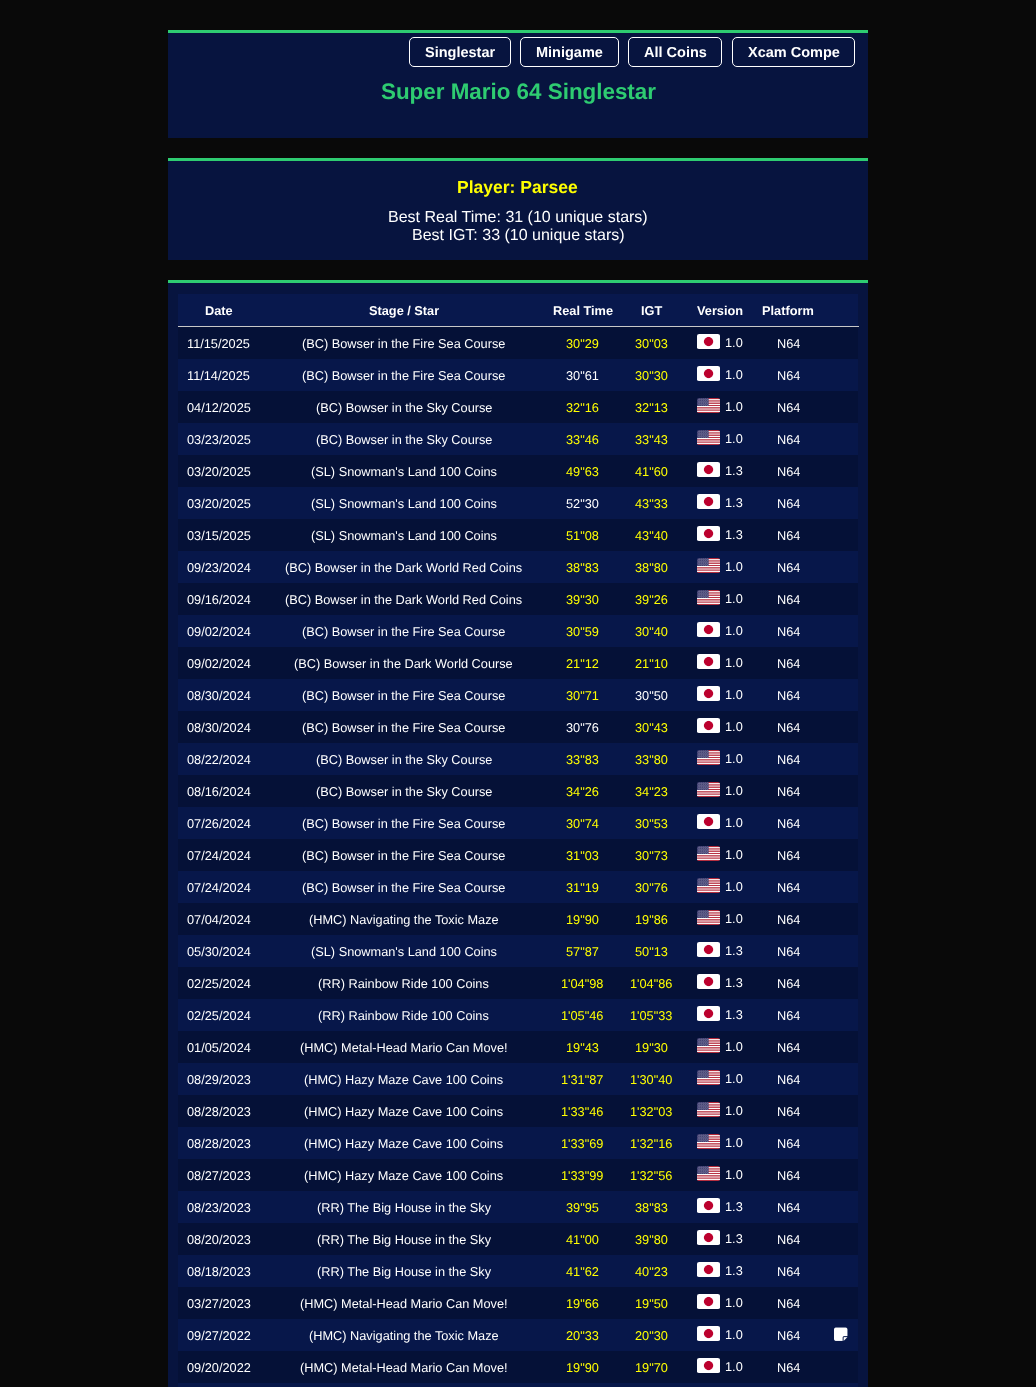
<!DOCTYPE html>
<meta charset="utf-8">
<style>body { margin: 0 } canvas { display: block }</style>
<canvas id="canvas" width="1036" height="1387"></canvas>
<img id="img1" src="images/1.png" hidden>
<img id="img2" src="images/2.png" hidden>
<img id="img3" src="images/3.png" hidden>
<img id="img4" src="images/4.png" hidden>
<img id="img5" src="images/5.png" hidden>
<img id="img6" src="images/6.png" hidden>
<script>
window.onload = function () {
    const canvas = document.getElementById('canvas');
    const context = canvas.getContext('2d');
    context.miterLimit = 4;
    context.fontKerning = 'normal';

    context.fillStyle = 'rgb(9, 9, 9)';
    context.fillRect(0, 0, 1036, 1387);
    context.fillStyle = 'rgb(7, 20, 63)';
    context.fillRect(168, 33, 700, 105);
    context.fillStyle = 'rgb(46, 204, 113)';
    context.fillRect(168, 30, 700, 3);
    context.beginPath();
    context.roundRect(409.5, 37.5, 101, 29, 4.5);
    context.strokeStyle = 'rgb(255, 255, 255)';
    context.stroke();
    context.beginPath();
    context.roundRect(520.5, 37.5, 98, 29, 4.5);
    context.stroke();
    context.beginPath();
    context.roundRect(628.5, 37.5, 93, 29, 4.5);
    context.stroke();
    context.beginPath();
    context.roundRect(732.5, 37.5, 122, 29, 4.5);
    context.stroke();
    context.fillStyle = 'rgb(7, 20, 63)';
    context.fillRect(168, 161, 700, 99);
    context.fillStyle = 'rgb(46, 204, 113)';
    context.fillRect(168, 158, 700, 3);
    context.fillStyle = 'rgb(7, 20, 63)';
    context.fillRect(168, 283, 700, 1104);
    context.fillStyle = 'rgb(46, 204, 113)';
    context.fillRect(168, 280, 700, 3);
    context.fillStyle = 'rgb(8, 24, 77)';
    context.fillRect(178, 294, 680, 32);
    context.fillStyle = 'rgb(200, 200, 200)';
    context.fillRect(178, 326, 681, 1);
    context.fillStyle = 'rgb(5, 17, 55)';
    context.fillRect(178, 327, 680, 32);
    context.drawImage(document.getElementById('img1'), 697, 334, 23, 15);
    context.fillStyle = 'rgb(7, 23, 74)';
    context.fillRect(178, 359, 680, 32);
    context.drawImage(document.getElementById('img2'), 697, 366, 23, 15);
    context.fillStyle = 'rgb(5, 17, 55)';
    context.fillRect(178, 391, 680, 32);
    context.drawImage(document.getElementById('img3'), 697, 398, 23, 15);
    context.fillStyle = 'rgb(7, 23, 74)';
    context.fillRect(178, 423, 680, 32);
    context.drawImage(document.getElementById('img4'), 697, 430, 23, 15);
    context.fillStyle = 'rgb(5, 17, 55)';
    context.fillRect(178, 455, 680, 32);
    context.drawImage(document.getElementById('img1'), 697, 462, 23, 15);
    context.fillStyle = 'rgb(7, 23, 74)';
    context.fillRect(178, 487, 680, 32);
    context.drawImage(document.getElementById('img2'), 697, 494, 23, 15);
    context.fillStyle = 'rgb(5, 17, 55)';
    context.fillRect(178, 519, 680, 32);
    context.drawImage(document.getElementById('img5'), 697, 526, 23, 15);
    context.fillStyle = 'rgb(7, 23, 74)';
    context.fillRect(178, 551, 680, 32);
    context.drawImage(document.getElementById('img4'), 697, 558, 23, 15);
    context.fillStyle = 'rgb(5, 17, 55)';
    context.fillRect(178, 583, 680, 32);
    context.drawImage(document.getElementById('img3'), 697, 590, 23, 15);
    context.fillStyle = 'rgb(7, 23, 74)';
    context.fillRect(178, 615, 680, 32);
    context.drawImage(document.getElementById('img2'), 697, 622, 23, 15);
    context.fillStyle = 'rgb(5, 17, 55)';
    context.fillRect(178, 647, 680, 32);
    context.drawImage(document.getElementById('img1'), 697, 654, 23, 15);
    context.fillStyle = 'rgb(7, 23, 74)';
    context.fillRect(178, 679, 680, 32);
    context.drawImage(document.getElementById('img2'), 697, 686, 23, 15);
    context.fillStyle = 'rgb(5, 17, 55)';
    context.fillRect(178, 711, 680, 32);
    context.drawImage(document.getElementById('img1'), 697, 718, 23, 15);
    context.fillStyle = 'rgb(7, 23, 74)';
    context.fillRect(178, 743, 680, 32);
    context.drawImage(document.getElementById('img4'), 697, 750, 23, 15);
    context.fillStyle = 'rgb(5, 17, 55)';
    context.fillRect(178, 775, 680, 32);
    context.drawImage(document.getElementById('img3'), 697, 782, 23, 15);
    context.fillStyle = 'rgb(7, 23, 74)';
    context.fillRect(178, 807, 680, 32);
    context.drawImage(document.getElementById('img2'), 697, 814, 23, 15);
    context.fillStyle = 'rgb(5, 17, 55)';
    context.fillRect(178, 839, 680, 32);
    context.drawImage(document.getElementById('img3'), 697, 846, 23, 15);
    context.fillStyle = 'rgb(7, 23, 74)';
    context.fillRect(178, 871, 680, 32);
    context.drawImage(document.getElementById('img4'), 697, 878, 23, 15);
    context.fillStyle = 'rgb(5, 17, 55)';
    context.fillRect(178, 903, 680, 32);
    context.drawImage(document.getElementById('img3'), 697, 910, 23, 15);
    context.fillStyle = 'rgb(7, 23, 74)';
    context.fillRect(178, 935, 680, 32);
    context.drawImage(document.getElementById('img2'), 697, 942, 23, 15);
    context.fillStyle = 'rgb(5, 17, 55)';
    context.fillRect(178, 967, 680, 32);
    context.drawImage(document.getElementById('img1'), 697, 974, 23, 15);
    context.fillStyle = 'rgb(7, 23, 74)';
    context.fillRect(178, 999, 680, 32);
    context.drawImage(document.getElementById('img2'), 697, 1006, 23, 15);
    context.fillStyle = 'rgb(5, 17, 55)';
    context.fillRect(178, 1031, 680, 32);
    context.drawImage(document.getElementById('img3'), 697, 1038, 23, 15);
    context.fillStyle = 'rgb(7, 23, 74)';
    context.fillRect(178, 1063, 680, 32);
    context.drawImage(document.getElementById('img4'), 697, 1070, 23, 15);
    context.fillStyle = 'rgb(5, 17, 55)';
    context.fillRect(178, 1095, 680, 32);
    context.drawImage(document.getElementById('img3'), 697, 1102, 23, 15);
    context.fillStyle = 'rgb(7, 23, 74)';
    context.fillRect(178, 1127, 680, 32);
    context.drawImage(document.getElementById('img4'), 697, 1134, 23, 15);
    context.fillStyle = 'rgb(5, 17, 55)';
    context.fillRect(178, 1159, 680, 32);
    context.drawImage(document.getElementById('img3'), 697, 1166, 23, 15);
    context.fillStyle = 'rgb(7, 23, 74)';
    context.fillRect(178, 1191, 680, 32);
    context.drawImage(document.getElementById('img2'), 697, 1198, 23, 15);
    context.fillStyle = 'rgb(5, 17, 55)';
    context.fillRect(178, 1223, 680, 32);
    context.drawImage(document.getElementById('img1'), 697, 1230, 23, 15);
    context.fillStyle = 'rgb(7, 23, 74)';
    context.fillRect(178, 1255, 680, 32);
    context.drawImage(document.getElementById('img2'), 697, 1262, 23, 15);
    context.fillStyle = 'rgb(5, 17, 55)';
    context.fillRect(178, 1287, 680, 32);
    context.drawImage(document.getElementById('img1'), 697, 1294, 23, 15);
    context.fillStyle = 'rgb(7, 23, 74)';
    context.fillRect(178, 1319, 680, 32);
    context.drawImage(document.getElementById('img2'), 697, 1326, 23, 15);
    context.drawImage(document.getElementById('img6'), 834, 1327, 14, 14);
    context.fillStyle = 'rgb(5, 17, 55)';
    context.fillRect(178, 1351, 680, 32);
    context.drawImage(document.getElementById('img1'), 697, 1358, 23, 15);
    context.fillStyle = 'rgb(7, 23, 74)';
    context.fillRect(178, 1383, 680, 4);
    context.font = 'bold 14.5px Liberation Sans';
    context.fillStyle = 'rgb(255, 255, 255)';
    context.fillText('Singlestar', 425, 57);
    context.fillText('Minigame', 536, 57);
    context.fillText('All Coins', 644, 57);
    context.fillText('Xcam Compe', 748, 57);
    context.font = 'bold 22.4px Liberation Sans';
    context.fillStyle = 'rgb(46, 204, 113)';
    context.fillText('Super Mario 64 Singlestar', 381, 99);
    context.font = 'bold 17.5px Liberation Sans';
    context.fillStyle = 'rgb(255, 255, 0)';
    context.fillText('Player: Parsee', 457, 193);
    context.font = '16px Liberation Sans';
    context.fillStyle = 'rgb(255, 255, 255)';
    context.fillText('Best Real Time: 31 (10 unique stars)', 388, 222);
    context.fillText('Best IGT: 33 (10 unique stars)', 412, 240);
    context.font = 'bold 12.75px Liberation Sans';
    context.fillText('Date', 205, 315);
    context.fillText('Stage / Star', 369, 315);
    context.fillText('Real Time', 553, 315);
    context.fillText('IGT', 641, 315);
    context.fillText('Version', 697, 315);
    context.fillText('Platform', 762, 315);
    context.font = '12.75px Liberation Sans';
    context.fillText('11/15/2025', 187, 348);
    context.fillText('(BC) Bowser in the Fire Sea Course', 302, 348);
    context.fillStyle = 'rgb(255, 255, 0)';
    context.fillText('30"29', 566, 348);
    context.fillText('30"03', 635, 348);
    context.fillStyle = 'rgb(255, 255, 255)';
    context.fillText('1.0', 725, 347);
    context.fillText('N64', 777, 348);
    context.fillText('11/14/2025', 187, 380);
    context.fillText('(BC) Bowser in the Fire Sea Course', 302, 380);
    context.fillText('30"61', 566, 380);
    context.fillStyle = 'rgb(255, 255, 0)';
    context.fillText('30"30', 635, 380);
    context.fillStyle = 'rgb(255, 255, 255)';
    context.fillText('1.0', 725, 379);
    context.fillText('N64', 777, 380);
    context.fillText('04/12/2025', 187, 412);
    context.fillText('(BC) Bowser in the Sky Course', 316, 412);
    context.fillStyle = 'rgb(255, 255, 0)';
    context.fillText('32"16', 566, 412);
    context.fillText('32"13', 635, 412);
    context.fillStyle = 'rgb(255, 255, 255)';
    context.fillText('1.0', 725, 411);
    context.fillText('N64', 777, 412);
    context.fillText('03/23/2025', 187, 444);
    context.fillText('(BC) Bowser in the Sky Course', 316, 444);
    context.fillStyle = 'rgb(255, 255, 0)';
    context.fillText('33"46', 566, 444);
    context.fillText('33"43', 635, 444);
    context.fillStyle = 'rgb(255, 255, 255)';
    context.fillText('1.0', 725, 443);
    context.fillText('N64', 777, 444);
    context.fillText('03/20/2025', 187, 476);
    context.fillText('(SL) Snowman\'s Land 100 Coins', 311, 476);
    context.fillStyle = 'rgb(255, 255, 0)';
    context.fillText('49"63', 566, 476);
    context.fillText('41"60', 635, 476);
    context.fillStyle = 'rgb(255, 255, 255)';
    context.fillText('1.3', 725, 475);
    context.fillText('N64', 777, 476);
    context.fillText('03/20/2025', 187, 508);
    context.fillText('(SL) Snowman\'s Land 100 Coins', 311, 508);
    context.fillText('52"30', 566, 508);
    context.fillStyle = 'rgb(255, 255, 0)';
    context.fillText('43"33', 635, 508);
    context.fillStyle = 'rgb(255, 255, 255)';
    context.fillText('1.3', 725, 507);
    context.fillText('N64', 777, 508);
    context.fillText('03/15/2025', 187, 540);
    context.fillText('(SL) Snowman\'s Land 100 Coins', 311, 540);
    context.fillStyle = 'rgb(255, 255, 0)';
    context.fillText('51"08', 566, 540);
    context.fillText('43"40', 635, 540);
    context.fillStyle = 'rgb(255, 255, 255)';
    context.fillText('1.3', 725, 539);
    context.fillText('N64', 777, 540);
    context.fillText('09/23/2024', 187, 572);
    context.fillText('(BC) Bowser in the Dark World Red Coins', 285, 572);
    context.fillStyle = 'rgb(255, 255, 0)';
    context.fillText('38"83', 566, 572);
    context.fillText('38"80', 635, 572);
    context.fillStyle = 'rgb(255, 255, 255)';
    context.fillText('1.0', 725, 571);
    context.fillText('N64', 777, 572);
    context.fillText('09/16/2024', 187, 604);
    context.fillText('(BC) Bowser in the Dark World Red Coins', 285, 604);
    context.fillStyle = 'rgb(255, 255, 0)';
    context.fillText('39"30', 566, 604);
    context.fillText('39"26', 635, 604);
    context.fillStyle = 'rgb(255, 255, 255)';
    context.fillText('1.0', 725, 603);
    context.fillText('N64', 777, 604);
    context.fillText('09/02/2024', 187, 636);
    context.fillText('(BC) Bowser in the Fire Sea Course', 302, 636);
    context.fillStyle = 'rgb(255, 255, 0)';
    context.fillText('30"59', 566, 636);
    context.fillText('30"40', 635, 636);
    context.fillStyle = 'rgb(255, 255, 255)';
    context.fillText('1.0', 725, 635);
    context.fillText('N64', 777, 636);
    context.fillText('09/02/2024', 187, 668);
    context.fillText('(BC) Bowser in the Dark World Course', 294, 668);
    context.fillStyle = 'rgb(255, 255, 0)';
    context.fillText('21"12', 566, 668);
    context.fillText('21"10', 635, 668);
    context.fillStyle = 'rgb(255, 255, 255)';
    context.fillText('1.0', 725, 667);
    context.fillText('N64', 777, 668);
    context.fillText('08/30/2024', 187, 700);
    context.fillText('(BC) Bowser in the Fire Sea Course', 302, 700);
    context.fillStyle = 'rgb(255, 255, 0)';
    context.fillText('30"71', 566, 700);
    context.fillStyle = 'rgb(255, 255, 255)';
    context.fillText('30"50', 635, 700);
    context.fillText('1.0', 725, 699);
    context.fillText('N64', 777, 700);
    context.fillText('08/30/2024', 187, 732);
    context.fillText('(BC) Bowser in the Fire Sea Course', 302, 732);
    context.fillText('30"76', 566, 732);
    context.fillStyle = 'rgb(255, 255, 0)';
    context.fillText('30"43', 635, 732);
    context.fillStyle = 'rgb(255, 255, 255)';
    context.fillText('1.0', 725, 731);
    context.fillText('N64', 777, 732);
    context.fillText('08/22/2024', 187, 764);
    context.fillText('(BC) Bowser in the Sky Course', 316, 764);
    context.fillStyle = 'rgb(255, 255, 0)';
    context.fillText('33"83', 566, 764);
    context.fillText('33"80', 635, 764);
    context.fillStyle = 'rgb(255, 255, 255)';
    context.fillText('1.0', 725, 763);
    context.fillText('N64', 777, 764);
    context.fillText('08/16/2024', 187, 796);
    context.fillText('(BC) Bowser in the Sky Course', 316, 796);
    context.fillStyle = 'rgb(255, 255, 0)';
    context.fillText('34"26', 566, 796);
    context.fillText('34"23', 635, 796);
    context.fillStyle = 'rgb(255, 255, 255)';
    context.fillText('1.0', 725, 795);
    context.fillText('N64', 777, 796);
    context.fillText('07/26/2024', 187, 828);
    context.fillText('(BC) Bowser in the Fire Sea Course', 302, 828);
    context.fillStyle = 'rgb(255, 255, 0)';
    context.fillText('30"74', 566, 828);
    context.fillText('30"53', 635, 828);
    context.fillStyle = 'rgb(255, 255, 255)';
    context.fillText('1.0', 725, 827);
    context.fillText('N64', 777, 828);
    context.fillText('07/24/2024', 187, 860);
    context.fillText('(BC) Bowser in the Fire Sea Course', 302, 860);
    context.fillStyle = 'rgb(255, 255, 0)';
    context.fillText('31"03', 566, 860);
    context.fillText('30"73', 635, 860);
    context.fillStyle = 'rgb(255, 255, 255)';
    context.fillText('1.0', 725, 859);
    context.fillText('N64', 777, 860);
    context.fillText('07/24/2024', 187, 892);
    context.fillText('(BC) Bowser in the Fire Sea Course', 302, 892);
    context.fillStyle = 'rgb(255, 255, 0)';
    context.fillText('31"19', 566, 892);
    context.fillText('30"76', 635, 892);
    context.fillStyle = 'rgb(255, 255, 255)';
    context.fillText('1.0', 725, 891);
    context.fillText('N64', 777, 892);
    context.fillText('07/04/2024', 187, 924);
    context.fillText('(HMC) Navigating the Toxic Maze', 309, 924);
    context.fillStyle = 'rgb(255, 255, 0)';
    context.fillText('19"90', 566, 924);
    context.fillText('19"86', 635, 924);
    context.fillStyle = 'rgb(255, 255, 255)';
    context.fillText('1.0', 725, 923);
    context.fillText('N64', 777, 924);
    context.fillText('05/30/2024', 187, 956);
    context.fillText('(SL) Snowman\'s Land 100 Coins', 311, 956);
    context.fillStyle = 'rgb(255, 255, 0)';
    context.fillText('57"87', 566, 956);
    context.fillText('50"13', 635, 956);
    context.fillStyle = 'rgb(255, 255, 255)';
    context.fillText('1.3', 725, 955);
    context.fillText('N64', 777, 956);
    context.fillText('02/25/2024', 187, 988);
    context.fillText('(RR) Rainbow Ride 100 Coins', 318, 988);
    context.fillStyle = 'rgb(255, 255, 0)';
    context.fillText('1\'04"98', 561, 988);
    context.fillText('1\'04"86', 630, 988);
    context.fillStyle = 'rgb(255, 255, 255)';
    context.fillText('1.3', 725, 987);
    context.fillText('N64', 777, 988);
    context.fillText('02/25/2024', 187, 1020);
    context.fillText('(RR) Rainbow Ride 100 Coins', 318, 1020);
    context.fillStyle = 'rgb(255, 255, 0)';
    context.fillText('1\'05"46', 561, 1020);
    context.fillText('1\'05"33', 630, 1020);
    context.fillStyle = 'rgb(255, 255, 255)';
    context.fillText('1.3', 725, 1019);
    context.fillText('N64', 777, 1020);
    context.fillText('01/05/2024', 187, 1052);
    context.fillText('(HMC) Metal-Head Mario Can Move!', 300, 1052);
    context.fillStyle = 'rgb(255, 255, 0)';
    context.fillText('19"43', 566, 1052);
    context.fillText('19"30', 635, 1052);
    context.fillStyle = 'rgb(255, 255, 255)';
    context.fillText('1.0', 725, 1051);
    context.fillText('N64', 777, 1052);
    context.fillText('08/29/2023', 187, 1084);
    context.fillText('(HMC) Hazy Maze Cave 100 Coins', 304, 1084);
    context.fillStyle = 'rgb(255, 255, 0)';
    context.fillText('1\'31"87', 561, 1084);
    context.fillText('1\'30"40', 630, 1084);
    context.fillStyle = 'rgb(255, 255, 255)';
    context.fillText('1.0', 725, 1083);
    context.fillText('N64', 777, 1084);
    context.fillText('08/28/2023', 187, 1116);
    context.fillText('(HMC) Hazy Maze Cave 100 Coins', 304, 1116);
    context.fillStyle = 'rgb(255, 255, 0)';
    context.fillText('1\'33"46', 561, 1116);
    context.fillText('1\'32"03', 630, 1116);
    context.fillStyle = 'rgb(255, 255, 255)';
    context.fillText('1.0', 725, 1115);
    context.fillText('N64', 777, 1116);
    context.fillText('08/28/2023', 187, 1148);
    context.fillText('(HMC) Hazy Maze Cave 100 Coins', 304, 1148);
    context.fillStyle = 'rgb(255, 255, 0)';
    context.fillText('1\'33"69', 561, 1148);
    context.fillText('1\'32"16', 630, 1148);
    context.fillStyle = 'rgb(255, 255, 255)';
    context.fillText('1.0', 725, 1147);
    context.fillText('N64', 777, 1148);
    context.fillText('08/27/2023', 187, 1180);
    context.fillText('(HMC) Hazy Maze Cave 100 Coins', 304, 1180);
    context.fillStyle = 'rgb(255, 255, 0)';
    context.fillText('1\'33"99', 561, 1180);
    context.fillText('1\'32"56', 630, 1180);
    context.fillStyle = 'rgb(255, 255, 255)';
    context.fillText('1.0', 725, 1179);
    context.fillText('N64', 777, 1180);
    context.fillText('08/23/2023', 187, 1212);
    context.fillText('(RR) The Big House in the Sky', 317, 1212);
    context.fillStyle = 'rgb(255, 255, 0)';
    context.fillText('39"95', 566, 1212);
    context.fillText('38"83', 635, 1212);
    context.fillStyle = 'rgb(255, 255, 255)';
    context.fillText('1.3', 725, 1211);
    context.fillText('N64', 777, 1212);
    context.fillText('08/20/2023', 187, 1244);
    context.fillText('(RR) The Big House in the Sky', 317, 1244);
    context.fillStyle = 'rgb(255, 255, 0)';
    context.fillText('41"00', 566, 1244);
    context.fillText('39"80', 635, 1244);
    context.fillStyle = 'rgb(255, 255, 255)';
    context.fillText('1.3', 725, 1243);
    context.fillText('N64', 777, 1244);
    context.fillText('08/18/2023', 187, 1276);
    context.fillText('(RR) The Big House in the Sky', 317, 1276);
    context.fillStyle = 'rgb(255, 255, 0)';
    context.fillText('41"62', 566, 1276);
    context.fillText('40"23', 635, 1276);
    context.fillStyle = 'rgb(255, 255, 255)';
    context.fillText('1.3', 725, 1275);
    context.fillText('N64', 777, 1276);
    context.fillText('03/27/2023', 187, 1308);
    context.fillText('(HMC) Metal-Head Mario Can Move!', 300, 1308);
    context.fillStyle = 'rgb(255, 255, 0)';
    context.fillText('19"66', 566, 1308);
    context.fillText('19"50', 635, 1308);
    context.fillStyle = 'rgb(255, 255, 255)';
    context.fillText('1.0', 725, 1307);
    context.fillText('N64', 777, 1308);
    context.fillText('09/27/2022', 187, 1340);
    context.fillText('(HMC) Navigating the Toxic Maze', 309, 1340);
    context.fillStyle = 'rgb(255, 255, 0)';
    context.fillText('20"33', 566, 1340);
    context.fillText('20"30', 635, 1340);
    context.fillStyle = 'rgb(255, 255, 255)';
    context.fillText('1.0', 725, 1339);
    context.fillText('N64', 777, 1340);
    context.fillText('09/20/2022', 187, 1372);
    context.fillText('(HMC) Metal-Head Mario Can Move!', 300, 1372);
    context.fillStyle = 'rgb(255, 255, 0)';
    context.fillText('19"90', 566, 1372);
    context.fillText('19"70', 635, 1372);
    context.fillStyle = 'rgb(255, 255, 255)';
    context.fillText('1.0', 725, 1371);
    context.fillText('N64', 777, 1372);
};
</script>
